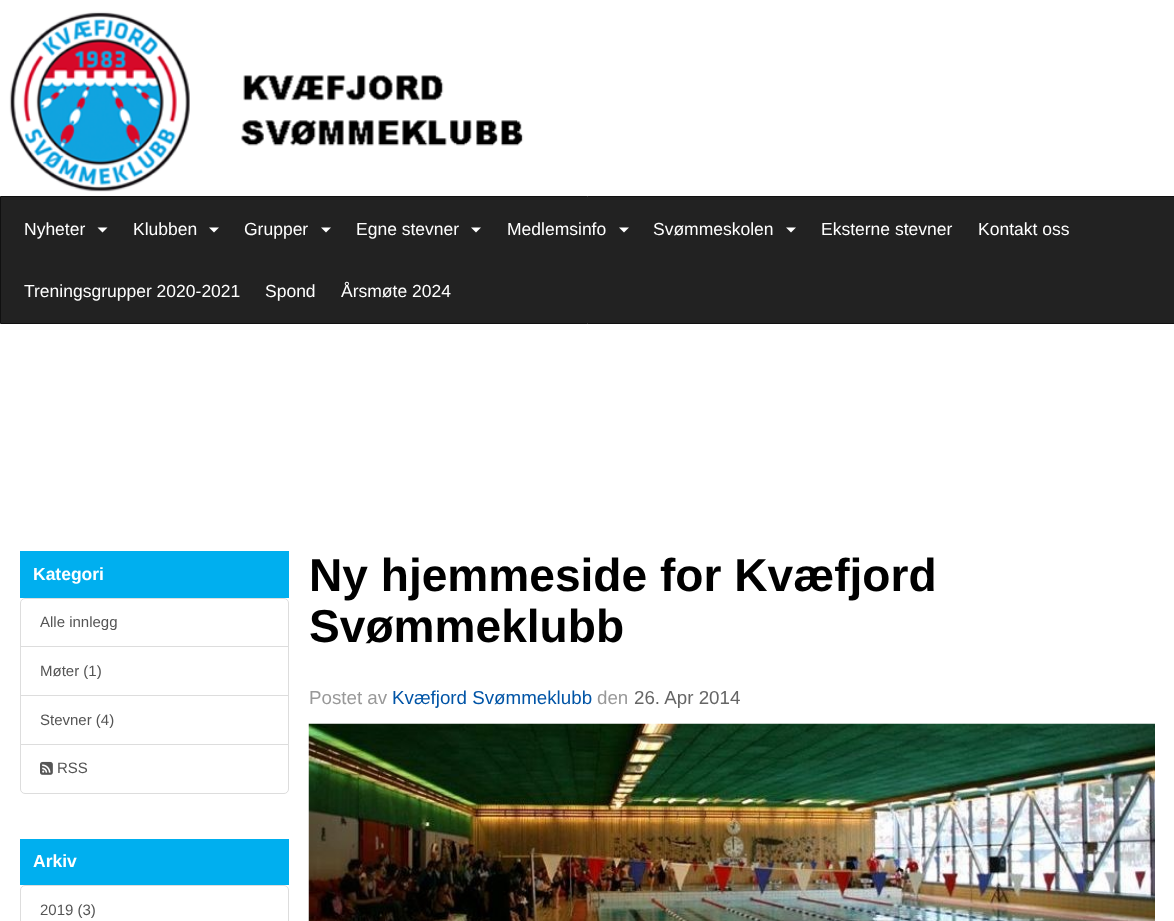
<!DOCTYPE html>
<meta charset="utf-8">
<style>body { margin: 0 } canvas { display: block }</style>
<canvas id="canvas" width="1174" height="921"></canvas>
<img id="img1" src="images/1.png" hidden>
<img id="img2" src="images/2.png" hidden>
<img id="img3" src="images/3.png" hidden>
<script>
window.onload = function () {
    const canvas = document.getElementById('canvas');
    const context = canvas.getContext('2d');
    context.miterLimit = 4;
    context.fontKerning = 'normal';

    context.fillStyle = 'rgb(255, 255, 255)';
    context.fillRect(0, 0, 1174, 921);
    context.drawImage(document.getElementById('img1'), 0, 0, 1174, 196);
    context.fillStyle = 'rgb(34, 34, 34)';
    context.beginPath();
    context.rect(0.5, 196.5, 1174, 127);
    context.fill();
    context.strokeStyle = 'rgb(16, 16, 16)';
    context.stroke();
    context.fillStyle = 'rgb(255, 255, 255)';
    context.beginPath();
    context.moveTo(97.5, 227.5);
    context.lineTo(107.5, 227.5);
    context.lineTo(102.5, 232.5);
    context.closePath();
    context.fill();
    context.beginPath();
    context.moveTo(209, 227.5);
    context.lineTo(219, 227.5);
    context.lineTo(214, 232.5);
    context.closePath();
    context.fill();
    context.beginPath();
    context.moveTo(321, 227.5);
    context.lineTo(331, 227.5);
    context.lineTo(326, 232.5);
    context.closePath();
    context.fill();
    context.beginPath();
    context.moveTo(471, 227.5);
    context.lineTo(481, 227.5);
    context.lineTo(476, 232.5);
    context.closePath();
    context.fill();
    context.beginPath();
    context.moveTo(619, 227.5);
    context.lineTo(629, 227.5);
    context.lineTo(624, 232.5);
    context.closePath();
    context.fill();
    context.beginPath();
    context.moveTo(786, 227.5);
    context.lineTo(796, 227.5);
    context.lineTo(791, 232.5);
    context.closePath();
    context.fill();
    context.fillStyle = 'rgb(0, 175, 239)';
    context.fillRect(20, 551, 269, 47);
    context.beginPath();
    context.roundRect(20.5, 598.5, 268, 49, [4.5, 4.5, 0, 0]);
    context.strokeStyle = 'rgb(221, 221, 221)';
    context.stroke();
    context.fillStyle = 'rgb(255, 255, 255)';
    context.fillRect(21, 647, 267, 1);
    context.strokeRect(20.5, 646.5, 268, 49);
    context.strokeRect(20.5, 695.5, 268, 49);
    context.beginPath();
    context.roundRect(20.5, 744.5, 268, 49, [0, 0, 4.5, 4.5]);
    context.fill();
    context.stroke();
    context.drawImage(document.getElementById('img2'), 40, 761, 13, 14);
    context.fillStyle = 'rgb(0, 175, 239)';
    context.fillRect(20, 839, 269, 46);
    context.beginPath();
    context.moveTo(25, 885.5);
    context.lineTo(284, 885.5);
    context.bezierCurveTo(286.5, 885.5, 288.5, 887.5, 288.5, 890);
    context.lineTo(288.5, 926.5);
    context.lineTo(20.5, 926.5);
    context.lineTo(20.5, 890);
    context.bezierCurveTo(20.5, 887.5, 22.5, 885.5, 25, 885.5);
    context.closePath();
    context.stroke();
    context.drawImage(document.getElementById('img3'), 308, 723, 847, 198);
    context.font = '17.5px Liberation Sans';
    context.fillStyle = 'rgb(255, 255, 255)';
    context.fillText('Nyheter', 24, 235);
    context.fillText('Klubben', 133, 235);
    context.fillText('Grupper', 244, 235);
    context.fillText('Egne stevner', 356, 235);
    context.fillText('Medlemsinfo', 507, 235);
    context.fillText('Svømmeskolen', 653, 235);
    context.fillText('Eksterne stevner', 821, 235);
    context.fillText('Kontakt oss', 978, 235);
    context.fillText('Treningsgrupper 2020-2021', 24, 297);
    context.fillText('Spond', 265, 297);
    context.fillText('Årsmøte 2024', 341, 297);
    context.font = 'bold 17.5px Liberation Sans';
    context.fillText('Kategori', 33, 580);
    context.font = '15px Liberation Sans';
    context.fillStyle = 'rgb(85, 85, 85)';
    context.fillText('Alle innlegg', 40, 627);
    context.fillText('Møter (1)', 40, 676);
    context.fillText('Stevner (4)', 40, 725);
    context.fillText('RSS', 57, 773);
    context.font = 'bold 17.5px Liberation Sans';
    context.fillStyle = 'rgb(255, 255, 255)';
    context.fillText('Arkiv', 33, 867);
    context.font = '15px Liberation Sans';
    context.fillStyle = 'rgb(85, 85, 85)';
    context.fillText('2019 (3)', 40, 915);
    context.font = 'bold 46.1px Liberation Sans';
    context.fillStyle = 'rgb(0, 0, 0)';
    context.fillText('Ny hjemmeside for Kvæfjord', 309, 591);
    context.fillText('Svømmeklubb', 309, 642);
    context.font = '18.75px Liberation Sans';
    context.fillStyle = 'rgb(153, 153, 153)';
    context.fillText('Postet av', 309, 704);
    context.fillStyle = 'rgb(0, 84, 166)';
    context.fillText('Kvæfjord Svømmeklubb', 392, 704);
    context.fillStyle = 'rgb(153, 153, 153)';
    context.fillText('den', 597, 704);
    context.fillStyle = 'rgb(102, 102, 102)';
    context.fillText('26. Apr 2014', 634, 704);
};
</script>
